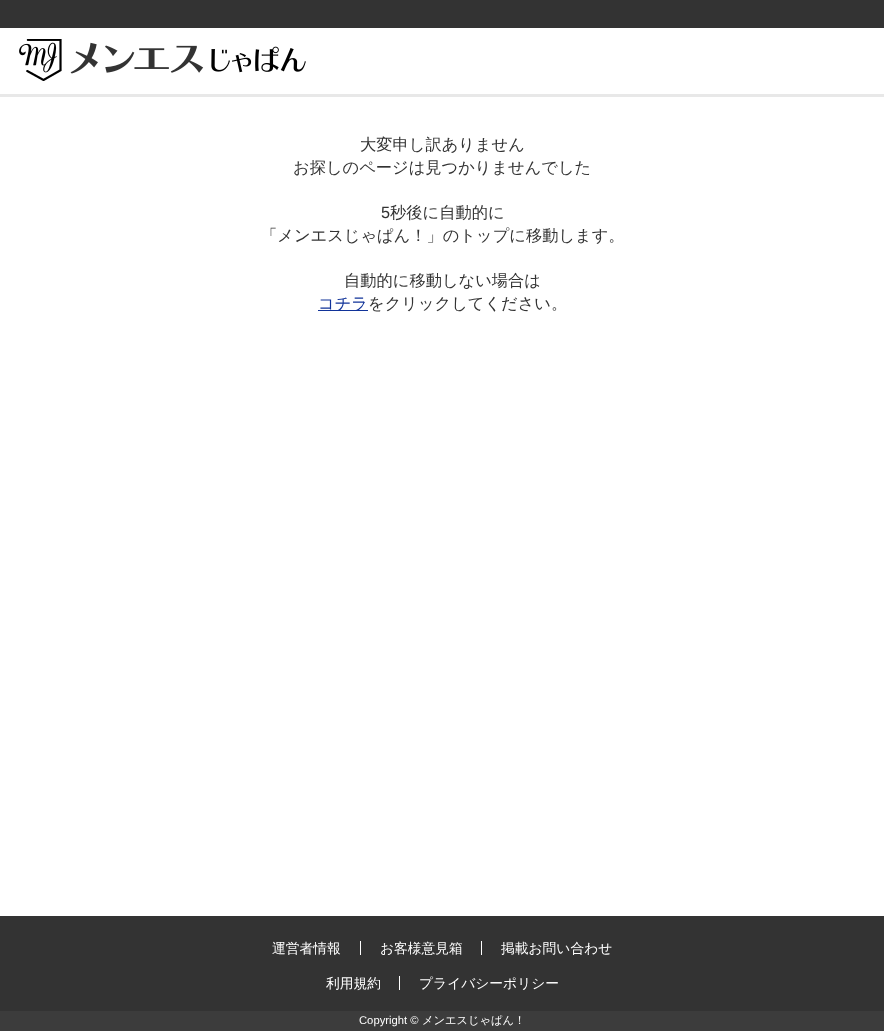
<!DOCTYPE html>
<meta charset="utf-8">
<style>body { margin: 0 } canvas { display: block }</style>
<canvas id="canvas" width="884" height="1031"></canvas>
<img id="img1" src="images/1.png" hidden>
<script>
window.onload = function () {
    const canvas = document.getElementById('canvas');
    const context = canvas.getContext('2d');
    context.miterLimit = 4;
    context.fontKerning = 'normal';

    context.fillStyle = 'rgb(255, 255, 255)';
    context.fillRect(0, 0, 884, 1031);
    context.fillStyle = 'rgb(51, 51, 51)';
    context.fillRect(0, 0, 884, 28);
    context.fillStyle = 'rgb(232, 232, 232)';
    context.fillRect(0, 94, 884, 3);
    context.drawImage(document.getElementById('img1'), 19, 39, 287, 42);
    context.fillStyle = 'rgb(17, 51, 153)';
    context.fillRect(318, 310, 50, 1);
    context.fillStyle = 'rgb(51, 51, 51)';
    context.fillRect(0, 916, 884, 95);
    context.fillStyle = 'rgb(255, 255, 255)';
    context.fillRect(360, 941, 1, 14);
    context.fillRect(481, 941, 1, 14);
    context.fillRect(399, 976, 1, 14);
    context.fillStyle = 'rgb(60, 60, 60)';
    context.fillRect(0, 1011, 884, 20);
    context.font = '500 16.25px WenQuanYi Zen Hei';
    context.fillStyle = 'rgb(51, 51, 51)';
    context.fillText('大変申し訳ありません', 360, 150);
    context.fillText('お探しのページは見つかりませんでした', 293, 173);
    context.font = '16.25px Liberation Sans';
    context.fillText('5', 381, 218);
    context.font = '500 16.25px WenQuanYi Zen Hei';
    context.fillText('秒後に自動的に', 390, 218);
    context.fillText('「メンエスじゃぱん！」のトップに移動します。', 261, 241);
    context.fillText('自動的に移動しない場合は', 344, 286);
    context.fillStyle = 'rgb(17, 51, 153)';
    context.fillText('コチラ', 318, 309);
    context.fillStyle = 'rgb(51, 51, 51)';
    context.fillText('をクリックしてください。', 368, 309);
    context.font = '500 13.75px WenQuanYi Zen Hei';
    context.fillStyle = 'rgb(255, 255, 255)';
    context.fillText('運営者情報', 272, 953);
    context.fillText('お客様意見箱', 380, 953);
    context.fillText('掲載お問い合わせ', 501, 953);
    context.fillText('利用規約', 326, 988);
    context.fillText('プライバシーポリシー', 419, 988);
    context.font = '11.25px Liberation Sans';
    context.fillText('Copyright ©', 359, 1024);
    context.font = '500 11.25px WenQuanYi Zen Hei';
    context.fillText('メンエスじゃぱん！', 422, 1024);
};
</script>
